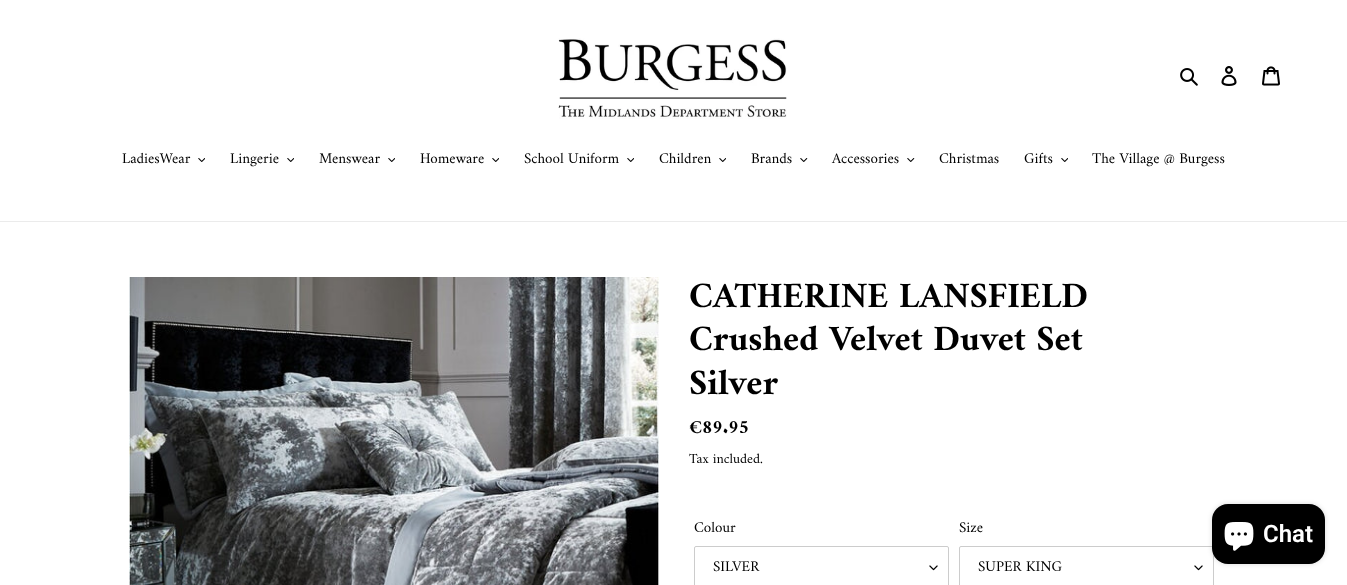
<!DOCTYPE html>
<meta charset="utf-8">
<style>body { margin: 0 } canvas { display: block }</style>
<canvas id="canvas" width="1347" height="585"></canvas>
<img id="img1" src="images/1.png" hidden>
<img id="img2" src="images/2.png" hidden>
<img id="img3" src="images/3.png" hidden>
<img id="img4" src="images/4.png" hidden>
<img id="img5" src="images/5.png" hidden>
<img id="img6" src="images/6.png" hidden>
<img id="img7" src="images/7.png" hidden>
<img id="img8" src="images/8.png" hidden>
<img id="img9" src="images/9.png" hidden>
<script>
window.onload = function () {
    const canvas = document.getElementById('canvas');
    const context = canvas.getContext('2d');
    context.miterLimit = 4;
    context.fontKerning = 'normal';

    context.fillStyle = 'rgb(255, 255, 255)';
    context.fillRect(0, 0, 1347, 585);
    context.drawImage(document.getElementById('img1'), 558, 38, 229, 81);
    context.drawImage(document.getElementById('img2'), 1180, 68, 18, 18);
    context.drawImage(document.getElementById('img3'), 1221, 66, 16, 20);
    context.drawImage(document.getElementById('img4'), 1262, 66, 18, 20);
    context.fillStyle = 'rgb(235, 235, 235)';
    context.fillRect(0, 221, 1347, 1);
    context.drawImage(document.getElementById('img5'), 198, 158, 7, 4);
    context.drawImage(document.getElementById('img5'), 287, 158, 7, 4);
    context.drawImage(document.getElementById('img5'), 388, 158, 7, 4);
    context.drawImage(document.getElementById('img5'), 492, 158, 7, 4);
    context.drawImage(document.getElementById('img5'), 627, 158, 7, 4);
    context.drawImage(document.getElementById('img5'), 719, 158, 7, 4);
    context.drawImage(document.getElementById('img6'), 800, 158, 8, 4);
    context.drawImage(document.getElementById('img6'), 907, 158, 8, 4);
    context.drawImage(document.getElementById('img5'), 1061, 158, 7, 4);
    context.drawImage(document.getElementById('img7'), 129, 277, 530, 308);
    context.drawImage(document.getElementById('img8'), 929, 565, 9, 6);
    context.beginPath();
    context.roundRect(694.5, 546.5, 254, 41, 1.5);
    context.strokeStyle = 'rgb(204, 204, 204)';
    context.stroke();
    context.drawImage(document.getElementById('img8'), 1194, 565, 9, 6);
    context.beginPath();
    context.roundRect(959.5, 546.5, 254, 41, 1.5);
    context.stroke();
    context.fillStyle = 'rgba(0, 0, 0, 0.15)';
    context.filter = 'blur(2.5px)';
    context.beginPath();
    context.roundRect(1212, 504, 113, 60, 16);
    context.fill();
    context.filter = 'none';
    context.fillStyle = 'rgb(0, 0, 0)';
    context.beginPath();
    context.roundRect(1212, 504, 113, 60, 16);
    context.fill();
    context.drawImage(document.getElementById('img9'), 1224, 522, 30, 29);
    context.font = '15px Amiri';
    context.fillText('LadiesWear', 122, 163);
    context.fillText('Lingerie', 230, 163);
    context.fillText('Menswear', 319, 163);
    context.fillText('Homeware', 420, 163);
    context.fillText('School Uniform', 524, 163);
    context.fillText('Children', 659, 163);
    context.fillText('Brands', 751, 163);
    context.fillText('Accessories', 832, 163);
    context.fillText('Christmas', 939, 163);
    context.fillText('Gifts', 1024, 163);
    context.fillText('The Village @ Burgess', 1092, 163);
    context.font = 'bold 36px Amiri';
    context.fillText('CATHERINE LANSFIELD', 689, 307);
    context.fillText('Crushed Velvet Duvet Set', 689, 350);
    context.fillText('Silver', 689, 394);
    context.font = 'bold 19px Amiri';
    context.fillText('€89.95', 689, 433);
    context.font = '14px Amiri';
    context.fillText('Tax included.', 689, 463);
    context.font = '15px Amiri';
    context.fillText('Colour', 694, 532);
    context.fillText('SILVER', 713, 571);
    context.fillText('Size', 959, 532);
    context.fillText('SUPER KING', 978, 571);
    context.font = '600 24px Roboto';
    context.fillStyle = 'rgb(255, 255, 255)';
    context.fillText('Chat', 1263, 542);
};
</script>
